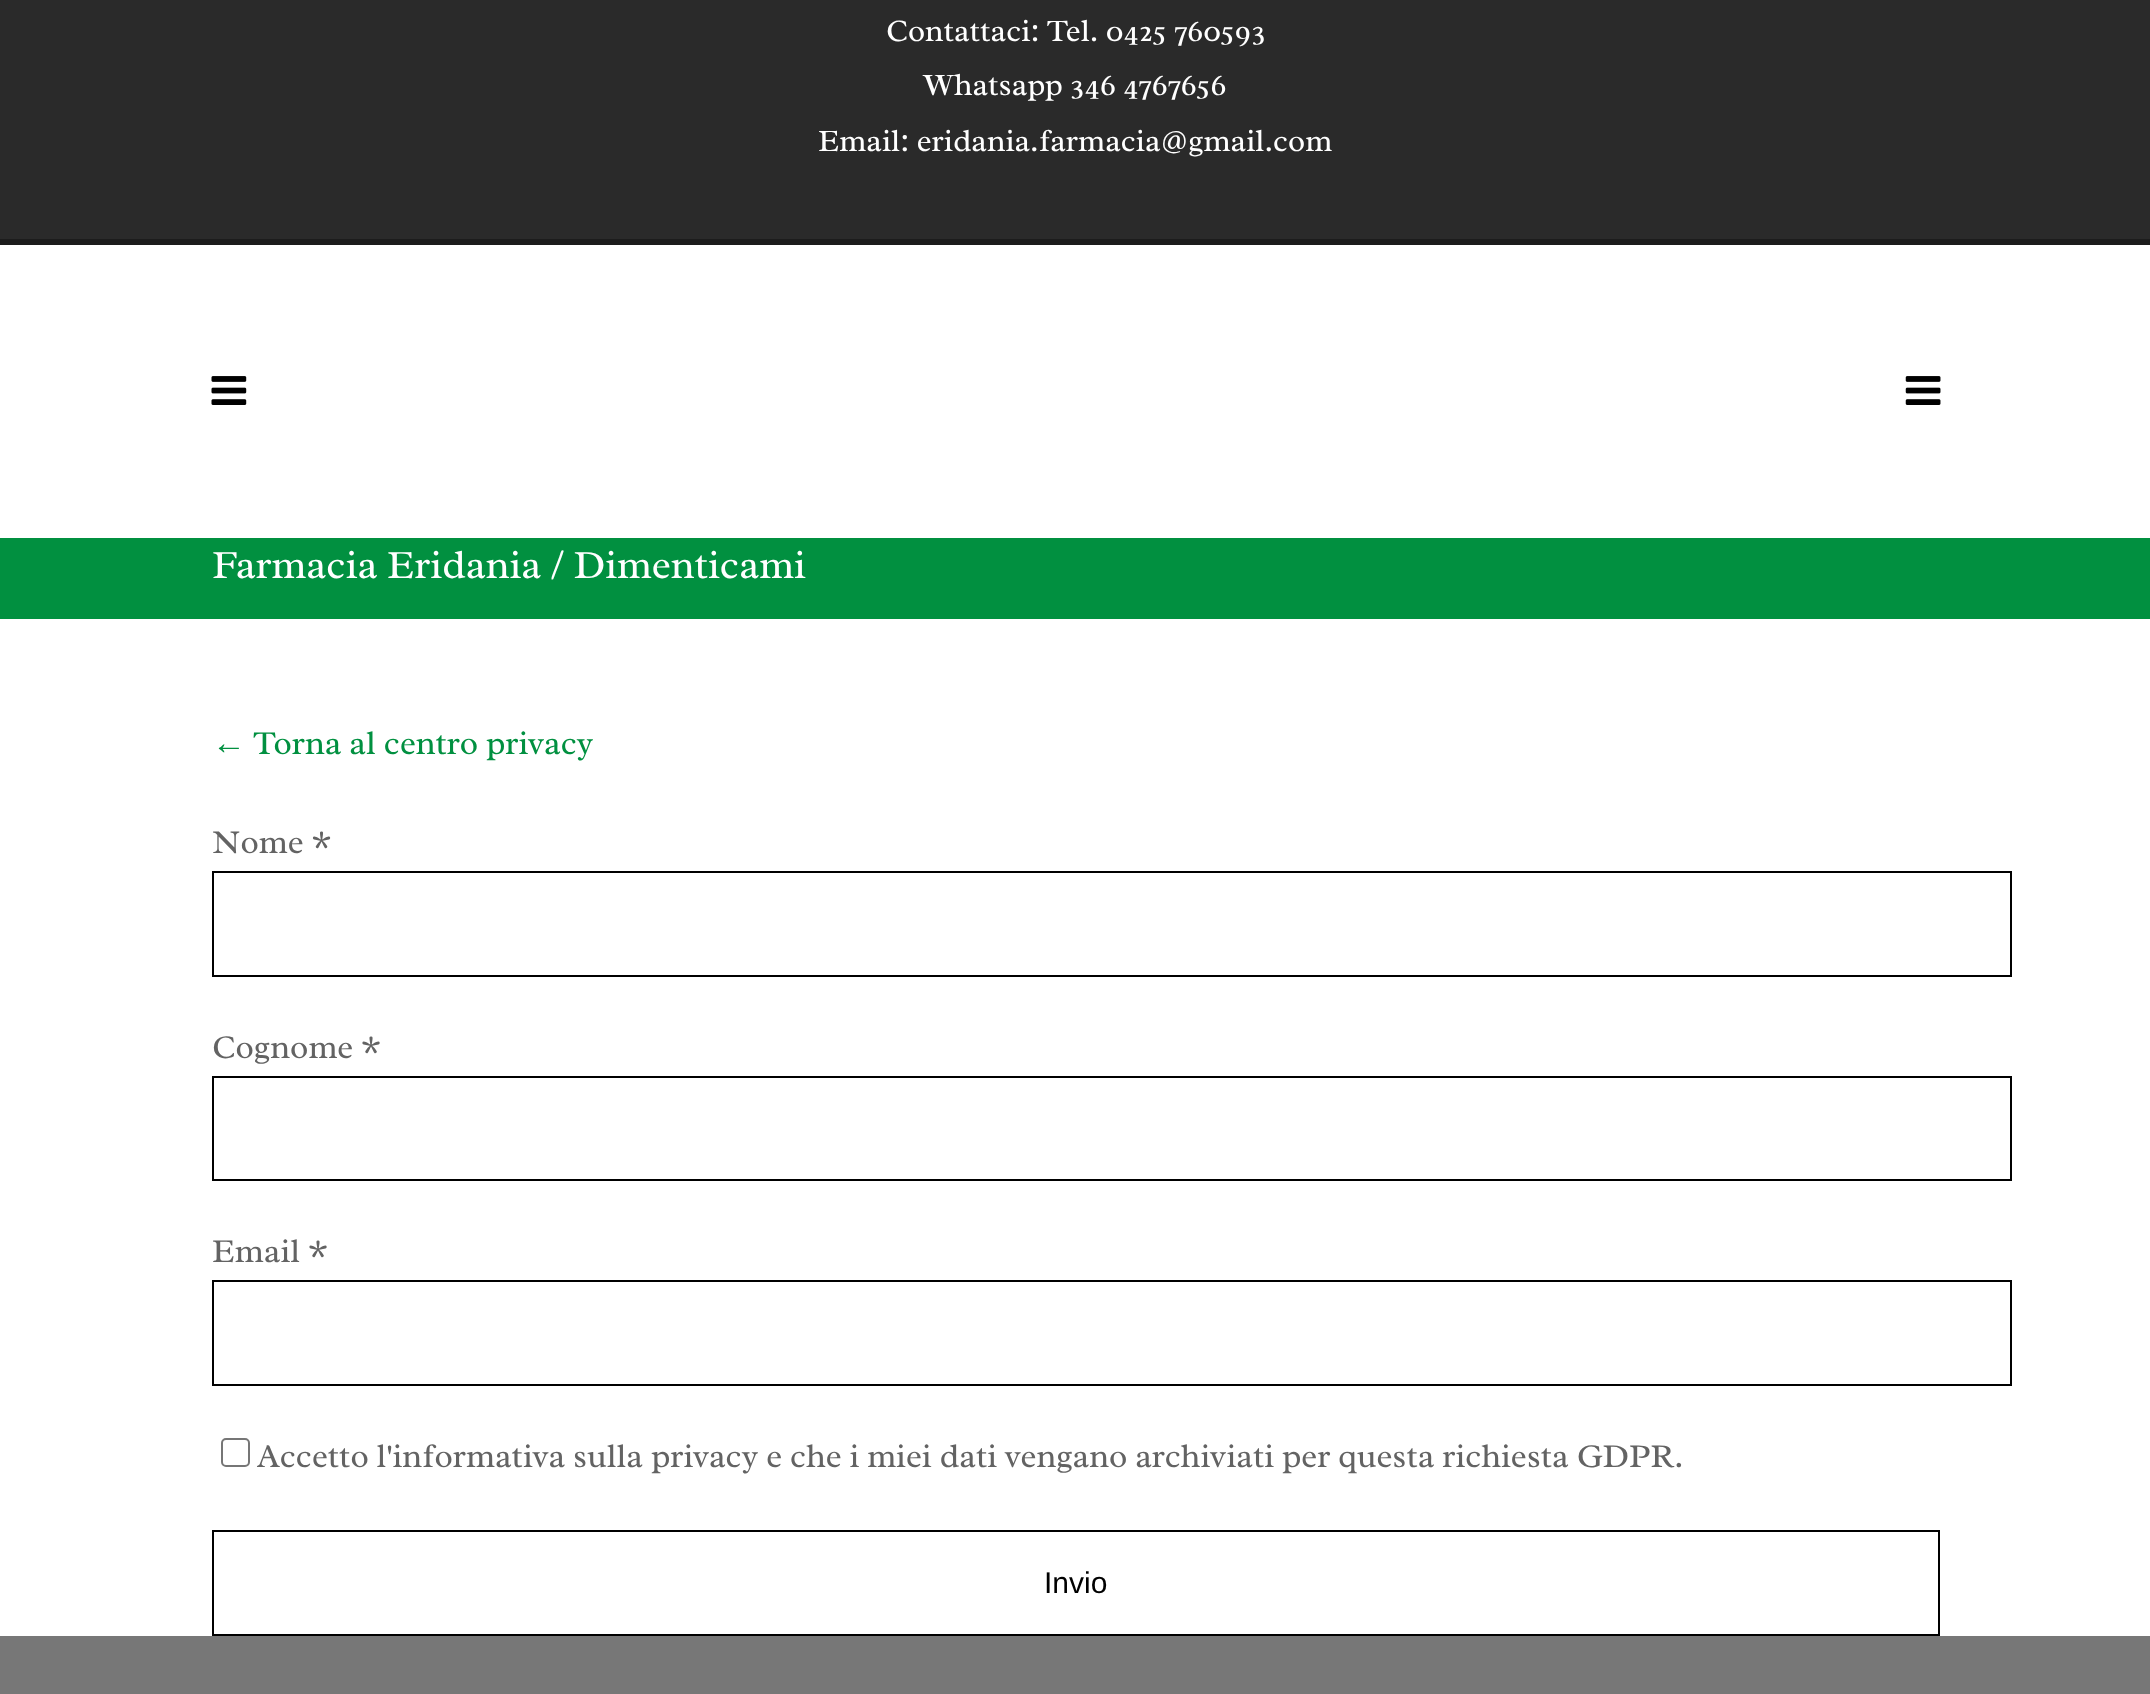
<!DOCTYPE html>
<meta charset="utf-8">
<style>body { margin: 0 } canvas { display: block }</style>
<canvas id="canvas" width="2150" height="1694"></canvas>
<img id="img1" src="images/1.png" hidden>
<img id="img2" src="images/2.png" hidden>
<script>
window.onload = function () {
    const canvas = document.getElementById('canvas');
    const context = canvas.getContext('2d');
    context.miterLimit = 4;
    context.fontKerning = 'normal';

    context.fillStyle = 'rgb(255, 255, 255)';
    context.fillRect(0, 0, 2150, 1694);
    context.fillStyle = 'rgb(42, 42, 42)';
    context.fillRect(0, 0, 2150, 239);
    context.fillStyle = 'rgb(28, 28, 28)';
    context.fillRect(0, 239, 2150, 6);
    context.drawImage(document.getElementById('img1'), 211, 376, 36, 29);
    context.drawImage(document.getElementById('img2'), 1905, 376, 36, 29);
    context.fillStyle = 'rgb(1, 144, 64)';
    context.fillRect(0, 538, 2150, 81);
    context.strokeStyle = 'rgb(0, 0, 0)';
    context.lineWidth = 2;
    context.strokeRect(213, 872, 1798, 104);
    context.strokeRect(213, 1077, 1798, 103);
    context.strokeRect(213, 1281, 1798, 104);
    context.beginPath();
    context.roundRect(222, 1439, 27, 27, 4);
    context.strokeStyle = 'rgb(118, 118, 118)';
    context.stroke();
    context.strokeStyle = 'rgb(0, 0, 0)';
    context.strokeRect(213, 1531, 1726, 104);
    context.fillStyle = 'rgb(119, 119, 119)';
    context.fillRect(0, 1636, 2150, 58);
    context.font = '31.5px Radley';
    context.fillStyle = 'rgb(255, 255, 255)';
    context.fillText('Contattaci: Tel. 0425 760593', 886, 41);
    context.fillText('Whatsapp 346 4767656', 924, 95);
    context.fillText('Email: eridania.farmacia@gmail.com', 818, 151);
    context.font = '40.5px Radley';
    context.fillText('Farmacia Eridania / Dimenticami', 212, 578);
    context.font = '33.75px Liberation Sans';
    context.fillStyle = 'rgb(1, 144, 64)';
    context.fillText('←', 212, 754);
    context.font = '33.75px Radley';
    context.fillText('Torna al centro privacy', 253, 754);
    context.fillStyle = 'rgb(99, 99, 99)';
    context.fillText('Nome *', 212, 853);
    context.fillText('Cognome *', 212, 1058);
    context.fillText('Email *', 212, 1262);
    context.fillText('Accetto l\'informativa sulla privacy e che i miei dati vengano archiviati per questa richiesta GDPR.', 257, 1467);
    context.font = '30px Liberation Sans';
    context.fillStyle = 'rgb(0, 0, 0)';
    context.fillText('Invio', 1044, 1593);
};
</script>
